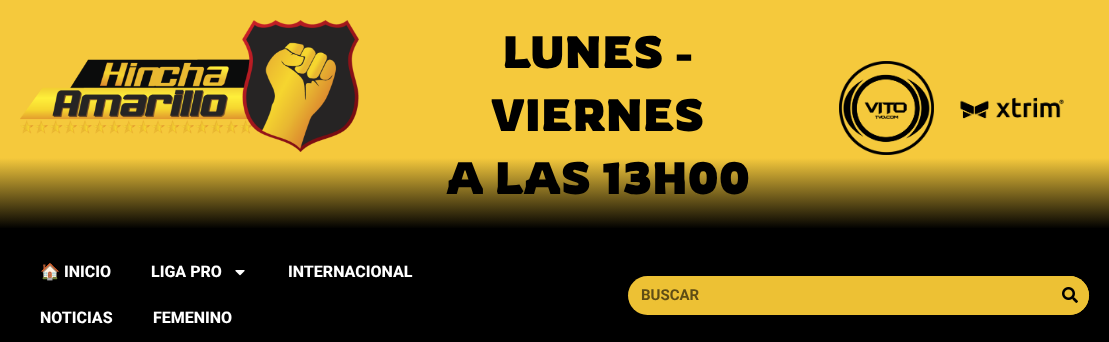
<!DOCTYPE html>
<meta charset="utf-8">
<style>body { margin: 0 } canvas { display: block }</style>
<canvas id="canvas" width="1109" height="342"></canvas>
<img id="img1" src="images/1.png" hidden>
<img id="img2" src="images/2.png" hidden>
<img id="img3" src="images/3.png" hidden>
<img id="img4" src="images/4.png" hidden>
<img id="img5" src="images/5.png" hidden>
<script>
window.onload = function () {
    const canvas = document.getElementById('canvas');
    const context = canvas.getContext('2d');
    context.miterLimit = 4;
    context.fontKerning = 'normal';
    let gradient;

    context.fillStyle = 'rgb(0, 0, 0)';
    context.fillRect(0, 0, 1109, 342);
    gradient = context.createLinearGradient(555, 0, 555, 229);
    gradient.addColorStop(0.69, 'rgb(245, 201, 60)');
    gradient.addColorStop(1, 'rgb(0, 0, 0)');
    context.fillStyle = gradient;
    context.fillRect(0, 0, 1109, 228);
    context.drawImage(document.getElementById('img1'), 20, 20, 339, 132);
    context.drawImage(document.getElementById('img2'), 839, 61, 95, 94);
    context.drawImage(document.getElementById('img3'), 960, 97, 104, 22);
    context.drawImage(document.getElementById('img4'), 235, 270, 10, 6);
    context.fillStyle = 'rgb(237, 193, 52)';
    context.beginPath();
    context.roundRect(628, 276, 461, 39, 19.5);
    context.fill();
    context.beginPath();
    context.roundRect(1050, 276, 39, 39, [0, 19.5, 19.5, 0]);
    context.fill();
    context.drawImage(document.getElementById('img5'), 1062, 287, 16, 16);
    context.font = 'bold 45px Rowdies';
    context.fillStyle = 'rgb(0, 0, 0)';
    context.fillText('LUNES -', 502, 68);
    context.fillText('VIERNES', 491, 131);
    context.fillText('A LAS 13H00', 446, 194);
    context.font = 'bold 16px Noto Color Emoji';
    context.fillStyle = 'rgb(255, 255, 255)';
    context.fillText('🏠', 40, 277);
    context.font = '800 16px Roboto';
    context.fillText('INICIO', 64, 277);
    context.fillText('LIGA PRO', 151, 277);
    context.fillText('INTERNACIONAL', 288, 277);
    context.fillText('NOTICIAS', 40, 323);
    context.fillText('FEMENINO', 153, 323);
    context.font = 'bold 15px Roboto';
    context.fillStyle = 'rgb(95, 77, 21)';
    context.fillText('BUSCAR', 641, 300);
};
</script>
